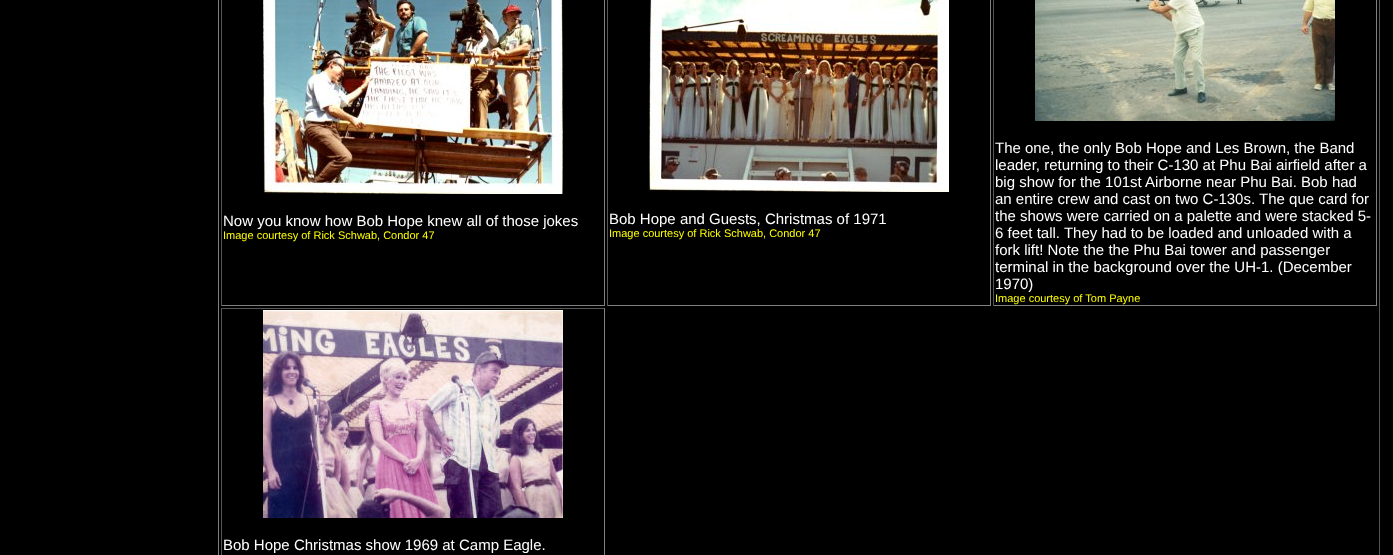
<!DOCTYPE html>
<meta charset="utf-8">
<style>body { margin: 0 } canvas { display: block }</style>
<canvas id="canvas" width="1393" height="555"></canvas>
<img id="img1" src="images/1.png" hidden>
<img id="img2" src="images/2.png" hidden>
<img id="img3" src="images/3.png" hidden>
<img id="img4" src="images/4.png" hidden>
<script>
window.onload = function () {
    const canvas = document.getElementById('canvas');
    const context = canvas.getContext('2d');
    context.miterLimit = 4;
    context.fontKerning = 'normal';

    context.fillStyle = 'rgb(0, 0, 0)';
    context.fillRect(0, 0, 1393, 555);
    context.fillStyle = 'rgb(85, 85, 85)';
    context.fillRect(1379, 0, 1, 555);
    context.fillStyle = 'rgb(128, 128, 128)';
    context.fillRect(218, 0, 1, 555);
    context.fillRect(604, 0, 1, 306);
    context.fillRect(221, 305, 384, 1);
    context.fillStyle = 'rgb(85, 85, 85)';
    context.fillRect(221, 0, 1, 306);
    context.drawImage(document.getElementById('img1'), 263, 0, 300, 194);
    context.fillStyle = 'rgb(128, 128, 128)';
    context.fillRect(990, 0, 1, 306);
    context.fillRect(607, 305, 384, 1);
    context.fillStyle = 'rgb(85, 85, 85)';
    context.fillRect(607, 0, 1, 306);
    context.drawImage(document.getElementById('img2'), 649, 0, 300, 192);
    context.fillStyle = 'rgb(128, 128, 128)';
    context.fillRect(1376, 0, 1, 306);
    context.fillRect(993, 305, 384, 1);
    context.fillStyle = 'rgb(85, 85, 85)';
    context.fillRect(993, 0, 1, 306);
    context.drawImage(document.getElementById('img3'), 1035, 0, 300, 121);
    context.fillRect(221, 308, 384, 1);
    context.fillStyle = 'rgb(128, 128, 128)';
    context.fillRect(604, 308, 1, 247);
    context.fillStyle = 'rgb(85, 85, 85)';
    context.fillRect(221, 308, 1, 247);
    context.drawImage(document.getElementById('img4'), 263, 310, 300, 208);
    context.font = '15px Liberation Sans';
    context.fillStyle = 'rgb(255, 255, 255)';
    context.fillText('Now you know how Bob Hope knew all of those jokes', 223, 226);
    context.font = '11px Liberation Sans';
    context.fillStyle = 'rgb(255, 255, 0)';
    context.fillText('Image courtesy of Rick Schwab, Condor 47', 223, 239);
    context.font = '15px Liberation Sans';
    context.fillStyle = 'rgb(255, 255, 255)';
    context.fillText('Bob Hope and Guests, Christmas of 1971', 609, 224);
    context.font = '11px Liberation Sans';
    context.fillStyle = 'rgb(255, 255, 0)';
    context.fillText('Image courtesy of Rick Schwab, Condor 47', 609, 237);
    context.font = '15px Liberation Sans';
    context.fillStyle = 'rgb(255, 255, 255)';
    context.fillText('The one, the only Bob Hope and Les Brown, the Band', 995, 153);
    context.fillText('leader, returning to their C-130 at Phu Bai airfield after a', 995, 170);
    context.fillText('big show for the 101st Airborne near Phu Bai. Bob had', 995, 187);
    context.fillText('an entire crew and cast on two C-130s. The que card for', 995, 204);
    context.fillText('the shows were carried on a palette and were stacked 5-', 995, 221);
    context.fillText('6 feet tall. They had to be loaded and unloaded with a', 995, 238);
    context.fillText('fork lift! Note the the Phu Bai tower and passenger', 995, 255);
    context.fillText('terminal in the background over the UH-1. (December', 995, 272);
    context.fillText('1970)', 995, 289);
    context.font = '11px Liberation Sans';
    context.fillStyle = 'rgb(255, 255, 0)';
    context.fillText('Image courtesy of Tom Payne', 995, 302);
    context.font = '15px Liberation Sans';
    context.fillStyle = 'rgb(255, 255, 255)';
    context.fillText('Bob Hope Christmas show 1969 at Camp Eagle.', 223, 550);
};
</script>
